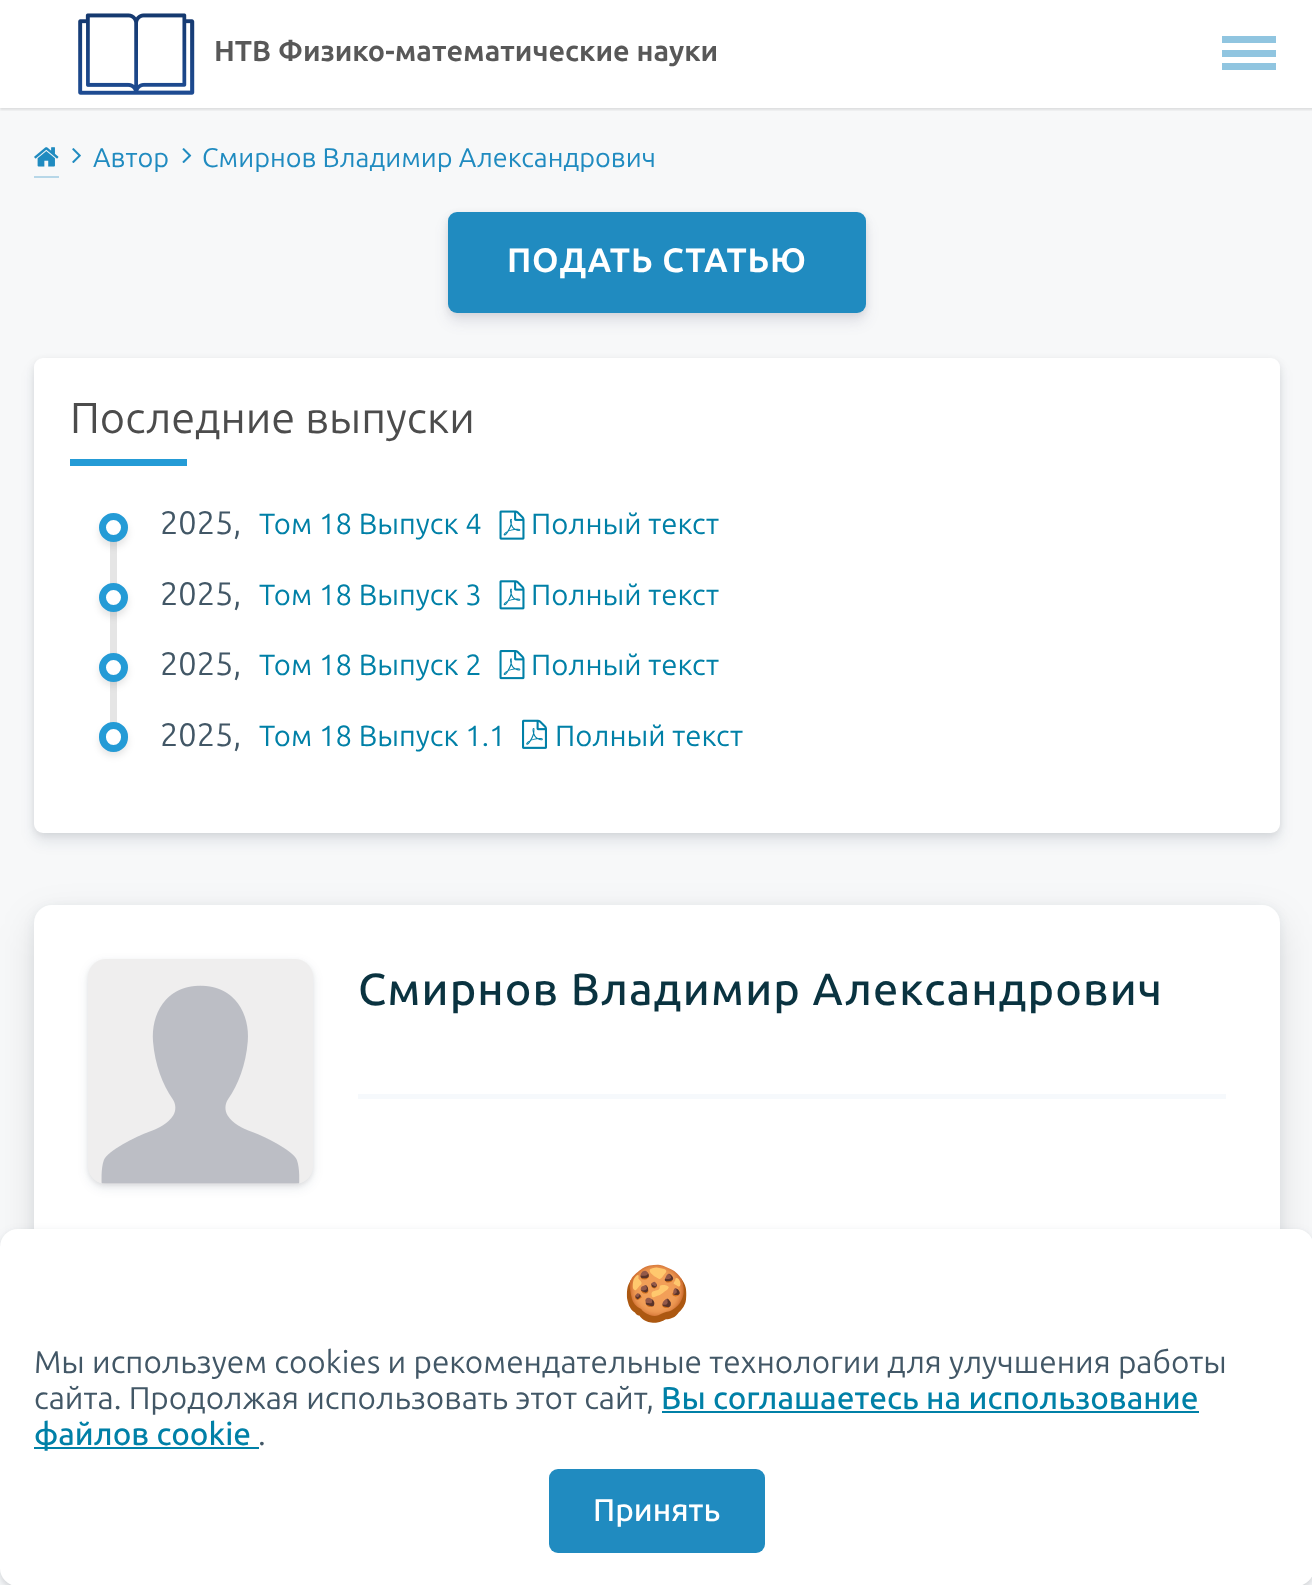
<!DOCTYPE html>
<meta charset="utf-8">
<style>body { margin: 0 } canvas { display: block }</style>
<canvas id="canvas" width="1312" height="1585"></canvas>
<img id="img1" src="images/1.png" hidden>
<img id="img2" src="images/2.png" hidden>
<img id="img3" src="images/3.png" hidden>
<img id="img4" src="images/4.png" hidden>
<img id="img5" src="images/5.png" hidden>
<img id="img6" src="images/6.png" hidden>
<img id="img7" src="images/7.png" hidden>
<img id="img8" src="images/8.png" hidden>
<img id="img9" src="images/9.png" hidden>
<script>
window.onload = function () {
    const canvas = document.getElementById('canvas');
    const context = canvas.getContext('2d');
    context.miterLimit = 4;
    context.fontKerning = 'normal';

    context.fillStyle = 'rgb(255, 255, 255)';
    context.fillRect(0, 0, 1312, 1585);
    context.fillStyle = 'rgb(247, 248, 249)';
    context.fillRect(0, 108, 1312, 1477);
    context.save();
    context.beginPath();
    context.rect(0, 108, 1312, 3);
    context.clip();
    context.fillStyle = 'rgba(0, 0, 0, 0.1)';
    context.filter = 'blur(1px)';
    context.beginPath();
    context.rect(0, 2, 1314, 108);
    context.fill();
    context.filter = 'none';
    context.restore();
    context.drawImage(document.getElementById('img1'), 78, 13, 117, 82);
    context.fillStyle = 'rgb(144, 197, 224)';
    context.fillRect(1222, 50, 54, 7);
    context.fillRect(1222, 36, 54, 7);
    context.fillRect(1222, 63, 54, 7);
    context.fillStyle = 'rgb(183, 215, 232)';
    context.fillRect(34, 176, 25, 2);
    context.drawImage(document.getElementById('img2'), 34, 147, 25, 20);
    context.drawImage(document.getElementById('img3'), 72, 148, 9, 15);
    context.drawImage(document.getElementById('img4'), 182, 148, 10, 15);
    context.fillStyle = 'rgba(0, 0, 0, 0.08)';
    context.filter = 'blur(3.5px)';
    context.beginPath();
    context.roundRect(448, 214, 418, 101, 9);
    context.fill();
    context.filter = 'none';
    context.fillStyle = 'rgba(50, 50, 93, 0.11)';
    context.filter = 'blur(7px)';
    context.beginPath();
    context.roundRect(448, 221, 418, 101, 9);
    context.fill();
    context.filter = 'none';
    context.fillStyle = 'rgb(32, 139, 192)';
    context.beginPath();
    context.roundRect(448, 212, 418, 101, 9);
    context.fill();
    context.fillStyle = 'rgba(0, 0, 0, 0.08)';
    context.filter = 'blur(3.5px)';
    context.beginPath();
    context.roundRect(34, 360, 1246, 475, 9);
    context.fill();
    context.filter = 'none';
    context.fillStyle = 'rgba(10, 37, 64, 0.09)';
    context.filter = 'blur(7px)';
    context.beginPath();
    context.roundRect(34, 367, 1246, 475, 9);
    context.fill();
    context.filter = 'none';
    context.fillStyle = 'rgb(255, 255, 255)';
    context.beginPath();
    context.roundRect(34, 358, 1246, 475, 9);
    context.fill();
    context.fillStyle = 'rgb(36, 155, 214)';
    context.fillRect(70, 459, 117, 7);
    context.fillStyle = 'rgb(229, 229, 229)';
    context.fillRect(110, 541, 7, 211);
    context.fillStyle = 'rgba(0, 0, 0, 0.1)';
    context.filter = 'blur(3.5px)';
    context.beginPath();
    context.roundRect(99, 518, 29, 29, 14.5);
    context.fill();
    context.filter = 'none';
    context.fillStyle = 'rgb(255, 255, 255)';
    context.beginPath();
    context.arc(113.5, 527.5, 11, 0, 2 * Math.PI);
    context.fill();
    context.strokeStyle = 'rgb(36, 155, 214)';
    context.lineWidth = 7;
    context.stroke();
    context.drawImage(document.getElementById('img5'), 499, 510, 26, 30);
    context.fillStyle = 'rgba(0, 0, 0, 0.1)';
    context.filter = 'blur(3.5px)';
    context.beginPath();
    context.roundRect(99, 587, 29, 30, 14.5);
    context.fill();
    context.filter = 'none';
    context.fillStyle = 'rgb(255, 255, 255)';
    context.beginPath();
    context.arc(113.5, 597.5, 11, 0, 2 * Math.PI);
    context.fill();
    context.stroke();
    context.drawImage(document.getElementById('img6'), 499, 580, 26, 30);
    context.fillStyle = 'rgba(0, 0, 0, 0.1)';
    context.filter = 'blur(3.5px)';
    context.beginPath();
    context.roundRect(99, 657, 29, 29, 14.5);
    context.fill();
    context.filter = 'none';
    context.fillStyle = 'rgb(255, 255, 255)';
    context.beginPath();
    context.arc(113.5, 667.5, 11, 0, 2 * Math.PI);
    context.fill();
    context.stroke();
    context.drawImage(document.getElementById('img7'), 499, 650, 26, 30);
    context.fillStyle = 'rgba(0, 0, 0, 0.1)';
    context.filter = 'blur(3.5px)';
    context.beginPath();
    context.roundRect(99, 727, 29, 29, 14.5);
    context.fill();
    context.filter = 'none';
    context.fillStyle = 'rgb(255, 255, 255)';
    context.beginPath();
    context.roundRect(102.5, 725.5, 22, 23, 11);
    context.fill();
    context.stroke();
    context.drawImage(document.getElementById('img8'), 522, 719, 25, 30);
    context.fillStyle = 'rgba(0, 0, 0, 0.1)';
    context.filter = 'blur(19px)';
    context.beginPath();
    context.roundRect(34, 920, 1246, 457, 18);
    context.fill();
    context.filter = 'none';
    context.fillStyle = 'rgba(10, 37, 64, 0.07)';
    context.filter = 'blur(5.5px)';
    context.beginPath();
    context.roundRect(34, 907, 1246, 457, 18);
    context.fill();
    context.filter = 'none';
    context.fillStyle = 'rgb(255, 255, 255)';
    context.beginPath();
    context.roundRect(34, 905, 1246, 456, 18);
    context.fill();
    context.fillStyle = 'rgba(0, 0, 0, 0.07)';
    context.filter = 'blur(2px)';
    context.beginPath();
    context.roundRect(88, 961, 225, 225, 18);
    context.fill();
    context.filter = 'none';
    context.fillStyle = 'rgba(10, 37, 64, 0.09)';
    context.filter = 'blur(5.5px)';
    context.beginPath();
    context.roundRect(88, 963, 225, 225, 18);
    context.fill();
    context.filter = 'none';
    context.drawImage(document.getElementById('img9'), 88, 959, 225, 225);
    context.fillStyle = 'rgb(246, 249, 252)';
    context.fillRect(358, 1094, 868, 5);
    context.fillStyle = 'rgba(0, 0, 0, 0.07)';
    context.filter = 'blur(2px)';
    context.beginPath();
    context.roundRect(0, 1231, 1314, 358, 18);
    context.fill();
    context.filter = 'none';
    context.fillStyle = 'rgba(10, 37, 64, 0.09)';
    context.filter = 'blur(5.5px)';
    context.beginPath();
    context.roundRect(0, 1233, 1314, 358, 18);
    context.fill();
    context.filter = 'none';
    context.fillStyle = 'rgb(255, 255, 255)';
    context.beginPath();
    context.roundRect(0, 1229, 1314, 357, 18);
    context.fill();
    context.fillStyle = 'rgb(0, 128, 167)';
    context.fillRect(662, 1411, 537, 2);
    context.fillRect(34, 1447, 225, 2);
    context.fillStyle = 'rgb(32, 139, 192)';
    context.beginPath();
    context.roundRect(549, 1469, 216, 84, 9);
    context.fill();
    context.font = 'bold 28.75px Ubuntu';
    context.fillStyle = 'rgb(88, 88, 88)';
    context.fillText('НТВ Физико-математические науки', 214, 61);
    context.font = '27px Ubuntu';
    context.fillStyle = 'rgb(32, 139, 192)';
    context.fillText('Автор', 93, 167);
    context.fillText('Смирнов Владимир Александрович', 202, 167);
    context.letterSpacing = '0.8px';
    context.font = 'bold 33.75px Ubuntu';
    context.fillStyle = 'rgb(255, 255, 255)';
    context.fillText('ПОДАТЬ СТАТЬЮ', 507, 272);
    context.letterSpacing = '0px';
    context.font = '43.25px Ubuntu';
    context.fillStyle = 'rgb(76, 76, 76)';
    context.fillText('Последние выпуски', 70, 433);
    context.font = '32.5px Ubuntu';
    context.fillStyle = 'rgb(66, 87, 102)';
    context.fillText('2025,', 160, 534);
    context.font = '29.25px Ubuntu';
    context.fillStyle = 'rgb(0, 128, 167)';
    context.fillText('Том 18 Выпуск 4', 259, 534);
    context.fillText('Полный текст', 531, 534);
    context.font = '32.5px Ubuntu';
    context.fillStyle = 'rgb(66, 87, 102)';
    context.fillText('2025,', 160, 605);
    context.font = '29.25px Ubuntu';
    context.fillStyle = 'rgb(0, 128, 167)';
    context.fillText('Том 18 Выпуск 3', 259, 605);
    context.fillText('Полный текст', 531, 605);
    context.font = '32.5px Ubuntu';
    context.fillStyle = 'rgb(66, 87, 102)';
    context.fillText('2025,', 160, 675);
    context.font = '29.25px Ubuntu';
    context.fillStyle = 'rgb(0, 128, 167)';
    context.fillText('Том 18 Выпуск 2', 259, 675);
    context.fillText('Полный текст', 531, 675);
    context.font = '32.5px Ubuntu';
    context.fillStyle = 'rgb(66, 87, 102)';
    context.fillText('2025,', 160, 746);
    context.font = '29.25px Ubuntu';
    context.fillStyle = 'rgb(0, 128, 167)';
    context.fillText('Том 18 Выпуск 1.1', 259, 746);
    context.fillText('Полный текст', 555, 746);
    context.letterSpacing = '1.1px';
    context.font = '500 45px Ubuntu';
    context.fillStyle = 'rgb(10, 51, 64)';
    context.fillText('Смирнов Владимир Александрович', 358, 1005);
    context.letterSpacing = '0px';
    context.font = '54px Noto Color Emoji';
    context.fillStyle = 'rgb(66, 87, 102)';
    context.fillText('🍪', 623, 1312);
    context.font = '31.5px Ubuntu';
    context.fillText('Мы используем cookies и рекомендательные технологии для улучшения работы', 34, 1373);
    context.fillText('сайта. Продолжая использовать этот сайт,', 34, 1409);
    context.font = '500 31.5px Ubuntu';
    context.fillStyle = 'rgb(0, 128, 167)';
    context.fillText('Вы соглашаетесь на использование', 661, 1409);
    context.fillText('файлов cookie', 34, 1445);
    context.font = '31.5px Ubuntu';
    context.fillStyle = 'rgb(66, 87, 102)';
    context.fillText('.', 258, 1445);
    context.font = '500 31.5px Ubuntu';
    context.fillStyle = 'rgb(255, 255, 255)';
    context.fillText('Принять', 593, 1521);
};
</script>
